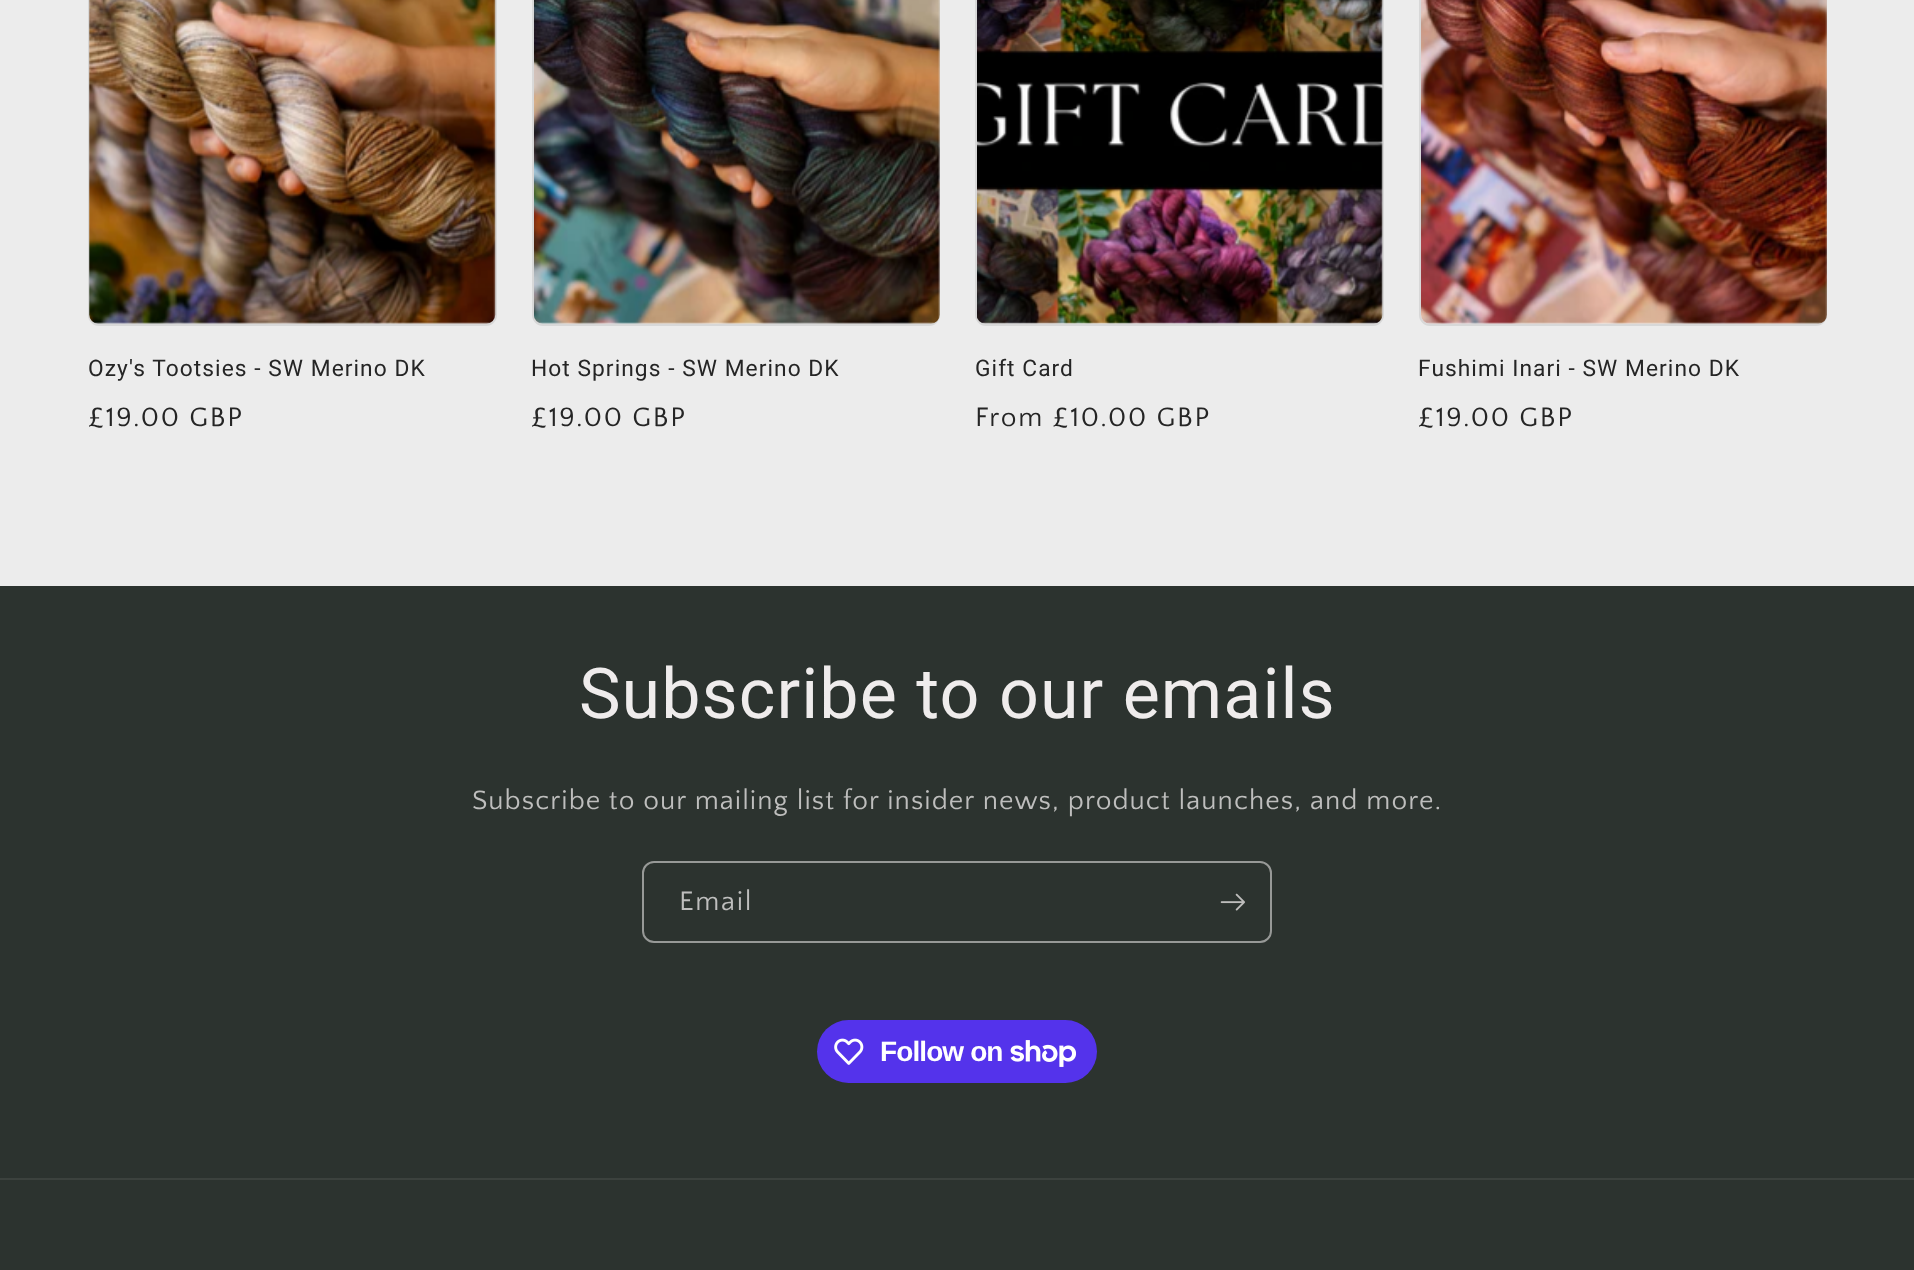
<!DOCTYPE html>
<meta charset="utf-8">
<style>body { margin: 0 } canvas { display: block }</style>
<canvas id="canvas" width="1914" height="1270"></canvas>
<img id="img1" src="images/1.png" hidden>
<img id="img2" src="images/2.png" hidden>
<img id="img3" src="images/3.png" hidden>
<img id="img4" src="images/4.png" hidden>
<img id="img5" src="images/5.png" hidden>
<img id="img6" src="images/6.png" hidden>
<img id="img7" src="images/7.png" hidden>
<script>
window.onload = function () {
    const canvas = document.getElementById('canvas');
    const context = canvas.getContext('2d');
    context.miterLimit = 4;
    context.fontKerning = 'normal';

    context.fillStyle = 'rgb(236, 236, 236)';
    context.fillRect(0, 0, 1914, 1270);
    context.beginPath();
    context.roundRect(89, -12, 407, 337, 10);
    context.strokeStyle = 'rgb(216, 216, 216)';
    context.lineWidth = 2;
    context.stroke();
    context.drawImage(document.getElementById('img1'), 89, 0, 407, 324);
    context.beginPath();
    context.roundRect(533, -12, 406, 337, 10);
    context.stroke();
    context.drawImage(document.getElementById('img2'), 534, 0, 406, 324);
    context.beginPath();
    context.roundRect(976, -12, 407, 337, 10);
    context.stroke();
    context.drawImage(document.getElementById('img3'), 977, 0, 406, 324);
    context.beginPath();
    context.roundRect(1420, -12, 406, 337, 10);
    context.stroke();
    context.drawImage(document.getElementById('img4'), 1421, 0, 406, 324);
    context.fillStyle = 'rgb(44, 51, 47)';
    context.fillRect(0, 586, 1914, 684);
    context.beginPath();
    context.roundRect(643, 862, 628, 80, 11);
    context.strokeStyle = 'rgb(151, 153, 151)';
    context.stroke();
    context.drawImage(document.getElementById('img5'), 1220, 893, 25, 18);
    context.fillStyle = 'rgb(84, 51, 235)';
    context.beginPath();
    context.roundRect(817, 1020, 280, 63, 31.5);
    context.fill();
    context.drawImage(document.getElementById('img6'), 834, 1038, 30, 27);
    context.drawImage(document.getElementById('img7'), 1010, 1040, 66, 27);
    context.fillStyle = 'rgb(60, 66, 62)';
    context.fillRect(0, 1178, 1914, 2);
    context.letterSpacing = '1.05px';
    context.font = '22.75px Roboto';
    context.fillStyle = 'rgb(37, 37, 37)';
    context.fillText('Ozy\'s Tootsies - SW Merino DK', 88, 376);
    context.letterSpacing = '1.75px';
    context.font = '28px Quattrocento Sans';
    context.fillText('£19.00 GBP', 88, 426);
    context.letterSpacing = '1.05px';
    context.font = '22.75px Roboto';
    context.fillText('Hot Springs - SW Merino DK', 531, 376);
    context.letterSpacing = '1.75px';
    context.font = '28px Quattrocento Sans';
    context.fillText('£19.00 GBP', 531, 426);
    context.letterSpacing = '1.05px';
    context.font = '22.75px Roboto';
    context.fillText('Gift Card', 975, 376);
    context.letterSpacing = '1.75px';
    context.font = '28px Quattrocento Sans';
    context.fillText('From £10.00 GBP', 975, 426);
    context.letterSpacing = '1.05px';
    context.font = '22.75px Roboto';
    context.fillText('Fushimi Inari - SW Merino DK', 1418, 376);
    context.letterSpacing = '1.75px';
    context.font = '28px Quattrocento Sans';
    context.fillText('£19.00 GBP', 1418, 426);
    context.letterSpacing = '1.05px';
    context.font = '70px Roboto';
    context.fillStyle = 'rgb(239, 236, 236)';
    context.fillText('Subscribe to our emails', 579, 718);
    context.font = '28px Quattrocento Sans';
    context.fillStyle = 'rgb(190, 190, 189)';
    context.fillText('Subscribe to our mailing list for insider news, product launches, and more.', 472, 809);
    context.letterSpacing = '1.75px';
    context.fillText('Email', 679, 910);
    context.letterSpacing = '-0.9px';
    context.font = 'bold 28px Liberation Sans';
    context.fillStyle = 'rgb(255, 255, 255)';
    context.fillText('Follow on', 880, 1061);
};
</script>
